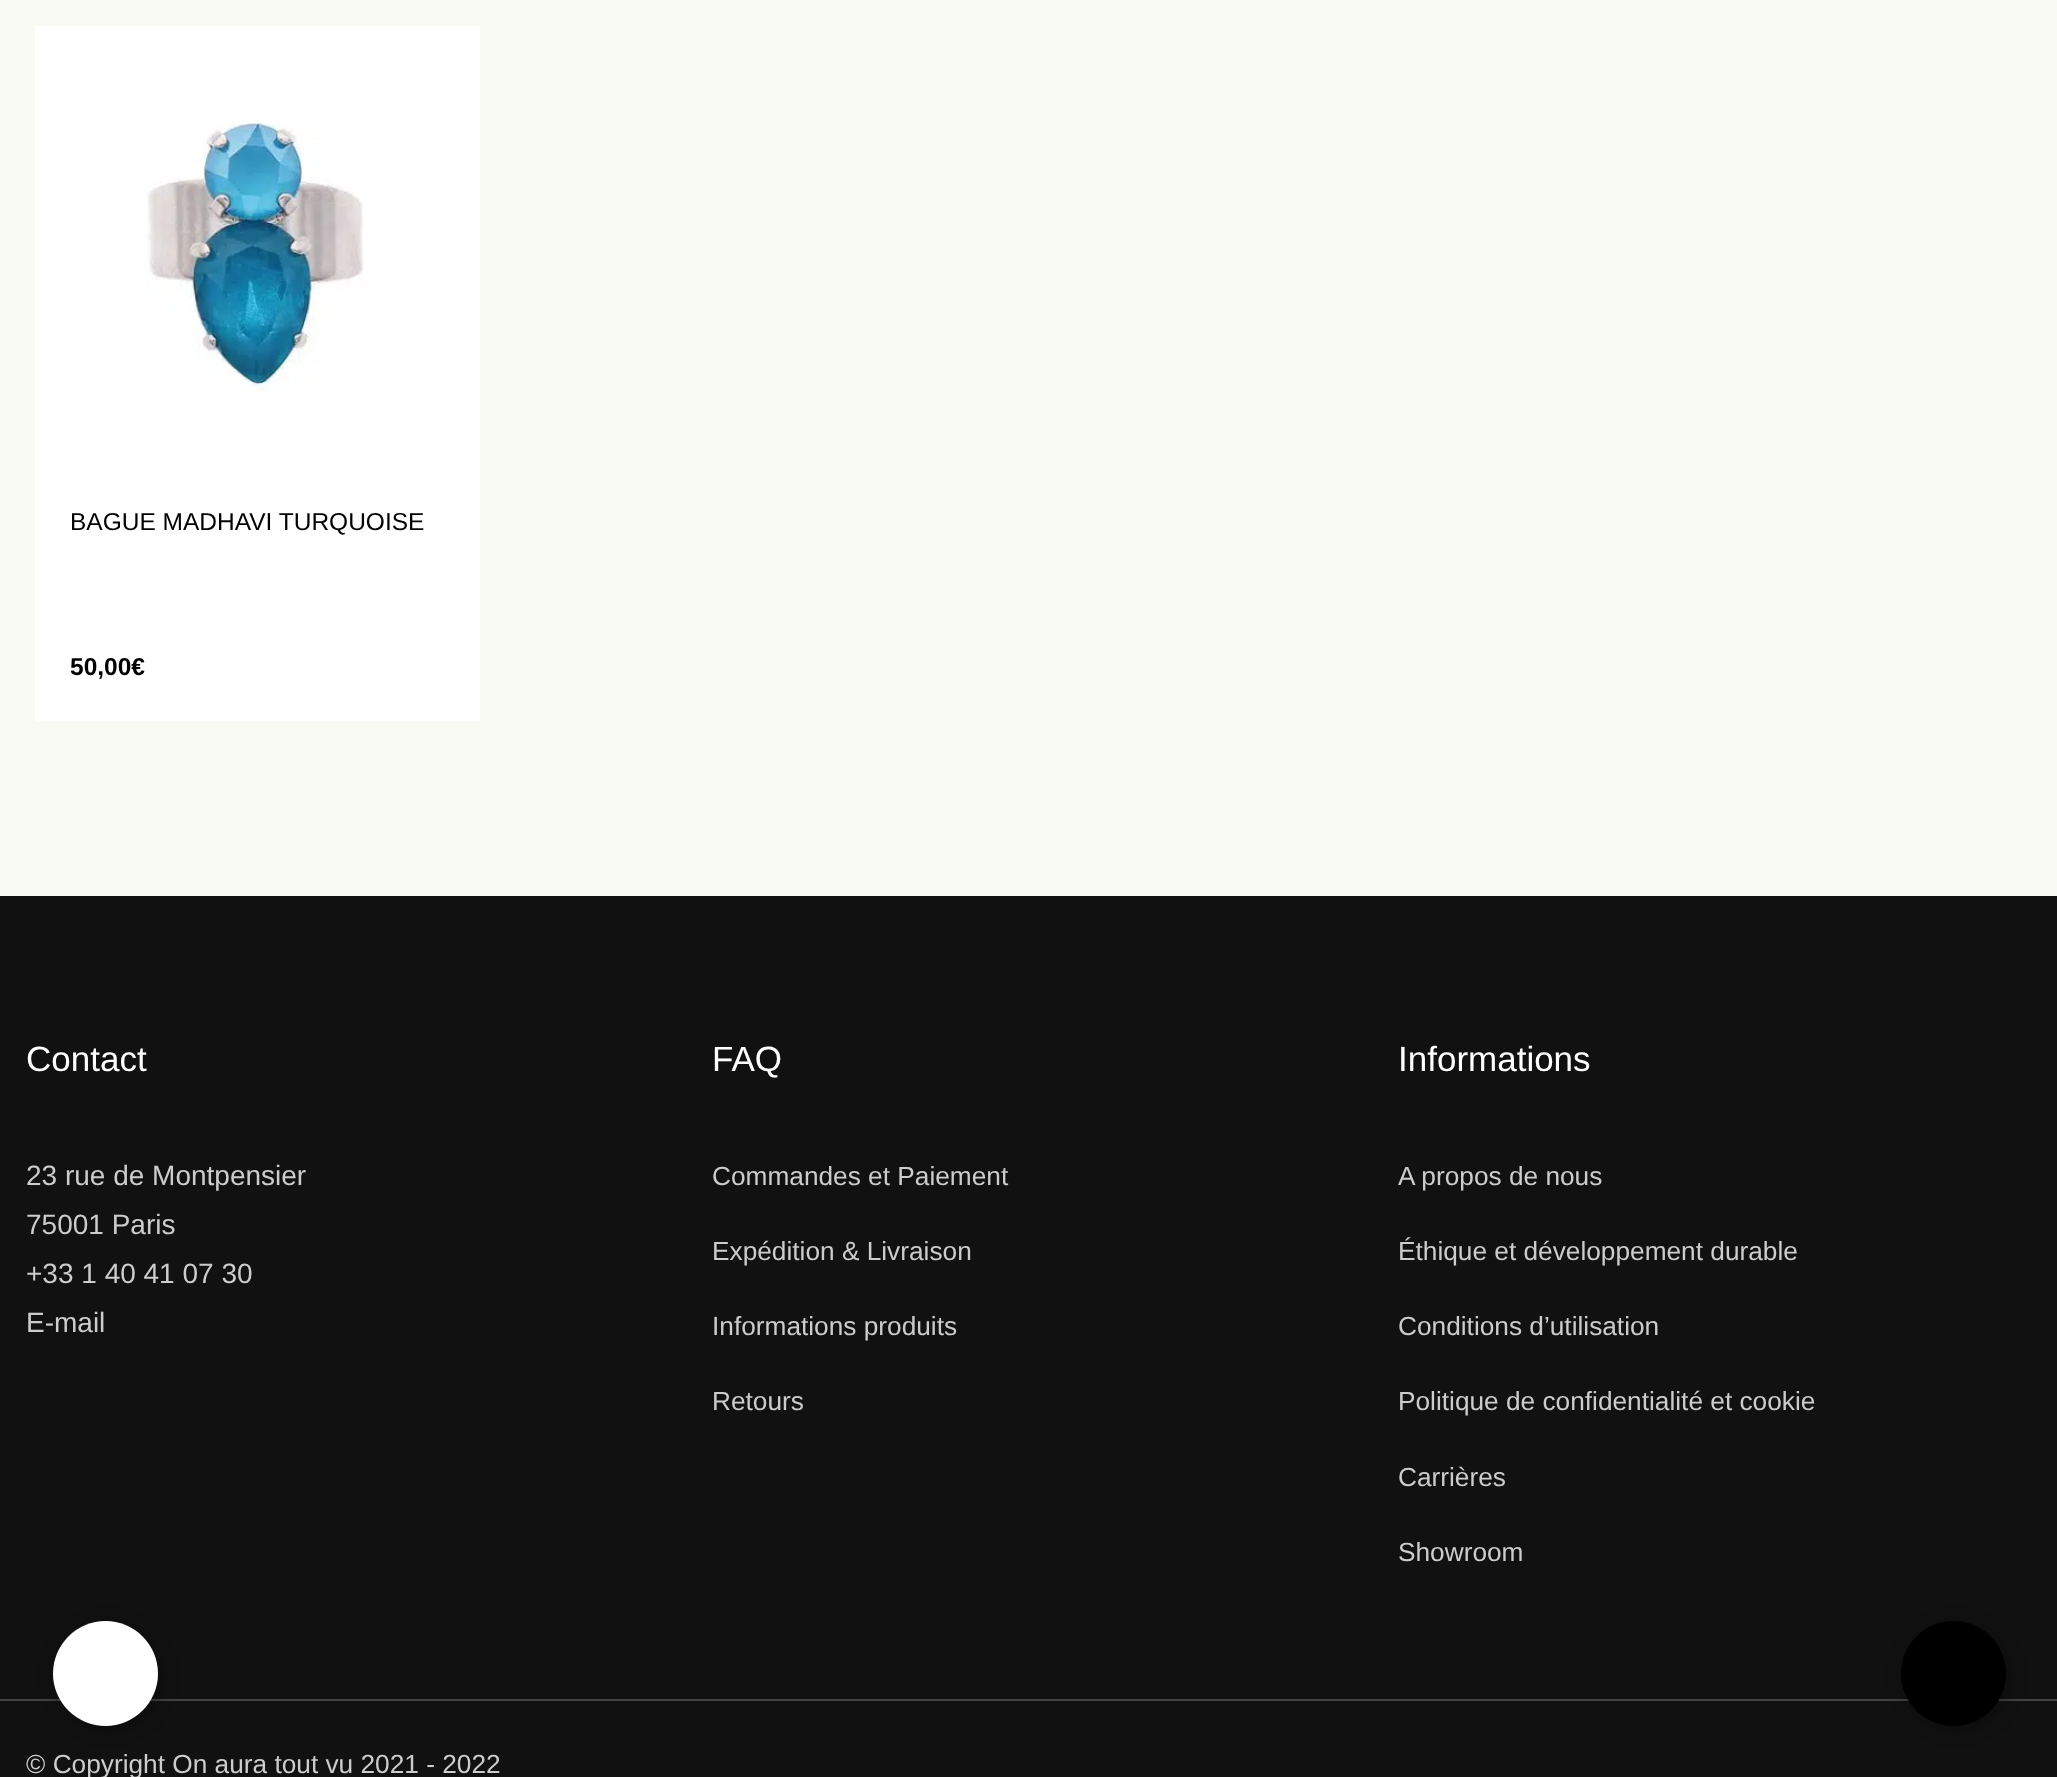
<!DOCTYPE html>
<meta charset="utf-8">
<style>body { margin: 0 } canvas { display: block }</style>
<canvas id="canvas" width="2057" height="1777"></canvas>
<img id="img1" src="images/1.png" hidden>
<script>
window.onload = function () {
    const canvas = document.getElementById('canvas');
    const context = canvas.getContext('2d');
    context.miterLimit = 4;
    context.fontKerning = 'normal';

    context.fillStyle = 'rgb(249, 250, 244)';
    context.fillRect(0, 0, 2057, 1777);
    context.fillStyle = 'rgb(255, 255, 255)';
    context.fillRect(35, 26, 445, 695);
    context.drawImage(document.getElementById('img1'), 146, 122, 218, 271);
    context.fillStyle = 'rgb(17, 17, 17)';
    context.fillRect(0, 896, 2057, 881);
    context.fillStyle = 'rgb(65, 65, 65)';
    context.fillRect(0, 1699, 2057, 2);
    context.fillStyle = 'rgba(0, 0, 0, 0.3)';
    context.filter = 'blur(9px)';
    context.beginPath();
    context.roundRect(1904, 1624, 105, 105, 52.5);
    context.fill();
    context.filter = 'none';
    context.fillStyle = 'rgb(0, 0, 0)';
    context.beginPath();
    context.arc(1953.5, 1673.5, 52.5, 0, 2 * Math.PI);
    context.fill();
    context.fillStyle = 'rgba(0, 0, 0, 0.3)';
    context.filter = 'blur(9px)';
    context.beginPath();
    context.roundRect(56, 1624, 105, 105, 52.5);
    context.fill();
    context.filter = 'none';
    context.fillStyle = 'rgb(255, 255, 255)';
    context.beginPath();
    context.arc(105.5, 1673.5, 52.5, 0, 2 * Math.PI);
    context.fill();
    context.font = '24.5px Liberation Sans';
    context.fillStyle = 'rgb(0, 0, 0)';
    context.fillText('BAGUE MADHAVI TURQUOISE', 70, 530);
    context.font = 'bold 24.5px Liberation Sans';
    context.fillText('50,00€', 70, 675);
    context.font = '35px Liberation Sans';
    context.fillStyle = 'rgb(255, 255, 255)';
    context.fillText('Contact', 26, 1071);
    context.font = '28px Liberation Sans';
    context.fillStyle = 'rgb(204, 204, 204)';
    context.fillText('23 rue de Montpensier', 26, 1185);
    context.fillText('75001 Paris', 26, 1234);
    context.fillText('+33 1 40 41 07 30', 26, 1283);
    context.fillText('E-mail', 26, 1332);
    context.font = '35px Liberation Sans';
    context.fillStyle = 'rgb(255, 255, 255)';
    context.fillText('FAQ', 712, 1071);
    context.font = '26.25px Liberation Sans';
    context.fillStyle = 'rgb(204, 204, 204)';
    context.fillText('Commandes et Paiement', 712, 1185);
    context.fillText('Expédition & Livraison', 712, 1260);
    context.fillText('Informations produits', 712, 1335);
    context.fillText('Retours', 712, 1410);
    context.font = '35px Liberation Sans';
    context.fillStyle = 'rgb(255, 255, 255)';
    context.fillText('Informations', 1398, 1071);
    context.font = '26.25px Liberation Sans';
    context.fillStyle = 'rgb(204, 204, 204)';
    context.fillText('A propos de nous', 1398, 1185);
    context.fillText('Éthique et développement durable', 1398, 1260);
    context.fillText('Conditions d’utilisation', 1398, 1335);
    context.fillText('Politique de confidentialité et cookie', 1398, 1410);
    context.fillText('Carrières', 1398, 1486);
    context.fillText('Showroom', 1398, 1561);
    context.fillText('© Copyright On aura tout vu 2021 - 2022', 26, 1773);
};
</script>
